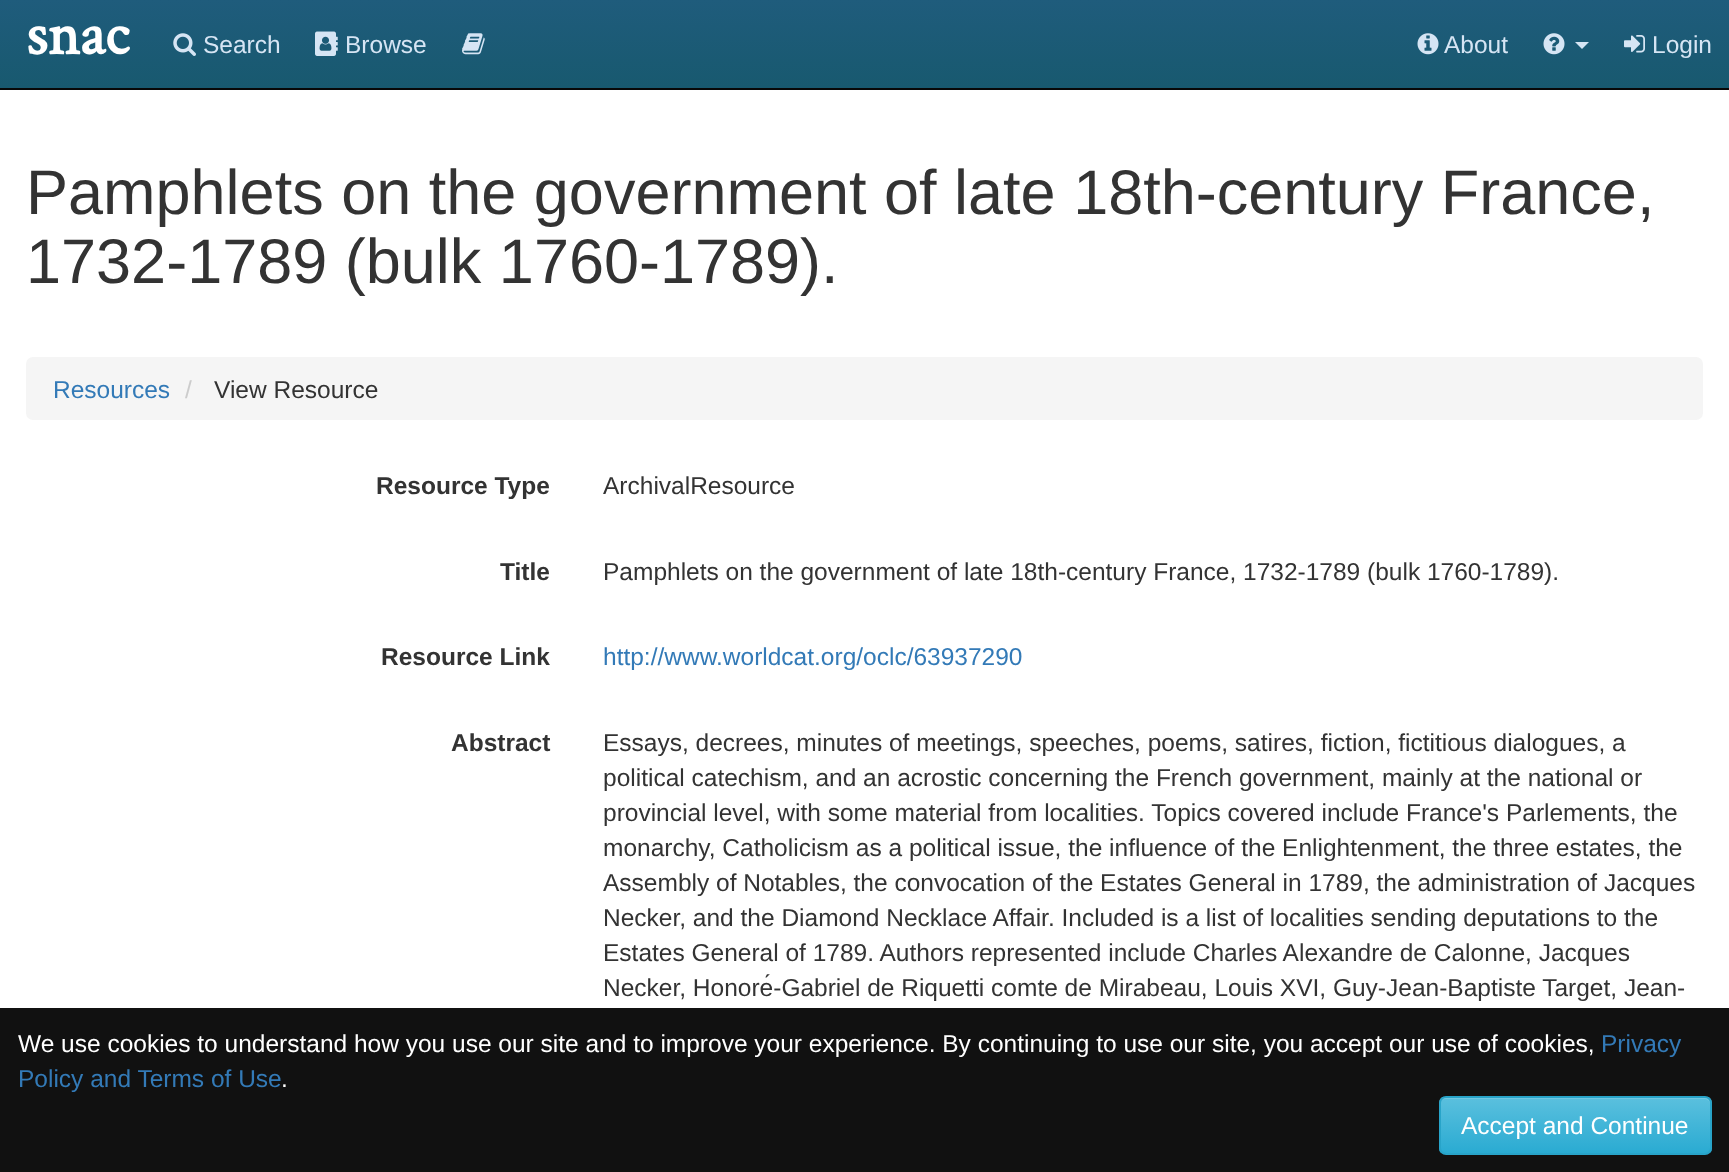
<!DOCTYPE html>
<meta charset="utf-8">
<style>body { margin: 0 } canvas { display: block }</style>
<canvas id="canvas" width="1729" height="1172"></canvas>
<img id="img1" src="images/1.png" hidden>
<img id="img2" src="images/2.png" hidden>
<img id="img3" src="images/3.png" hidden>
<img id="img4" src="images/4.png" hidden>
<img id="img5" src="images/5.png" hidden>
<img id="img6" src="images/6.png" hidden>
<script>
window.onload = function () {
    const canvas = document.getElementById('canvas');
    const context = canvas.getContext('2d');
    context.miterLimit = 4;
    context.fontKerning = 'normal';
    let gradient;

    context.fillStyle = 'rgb(255, 255, 255)';
    context.fillRect(0, 0, 1729, 1172);
    gradient = context.createLinearGradient(865, 0, 865, 88);
    gradient.addColorStop(0, 'rgb(31, 92, 124)');
    gradient.addColorStop(1, 'rgb(24, 89, 111)');
    context.fillStyle = gradient;
    context.fillRect(0, 0, 1729, 88);
    context.fillStyle = 'rgb(8, 8, 8)';
    context.fillRect(0, 88, 1729, 2);
    context.drawImage(document.getElementById('img1'), 173, 33, 23, 23);
    context.drawImage(document.getElementById('img2'), 315, 31, 23, 25);
    context.drawImage(document.getElementById('img3'), 462, 33, 23, 22);
    context.drawImage(document.getElementById('img4'), 1417, 33, 22, 22);
    context.drawImage(document.getElementById('img5'), 1543, 33, 22, 22);
    context.fillStyle = 'rgb(214, 229, 244)';
    context.beginPath();
    context.moveTo(1575, 42);
    context.lineTo(1589, 42);
    context.lineTo(1582, 49);
    context.closePath();
    context.fill();
    context.drawImage(document.getElementById('img6'), 1624, 35, 21, 18);
    context.fillStyle = 'rgb(245, 245, 245)';
    context.beginPath();
    context.roundRect(26, 357, 1677, 63, 7);
    context.fill();
    context.fillStyle = 'rgb(17, 17, 17)';
    context.fillRect(0, 1008, 1729, 164);
    context.save();
    context.beginPath();
    context.roundRect(1439, 1096, 273, 59, 7);
    context.clip();
    gradient = context.createLinearGradient(1575, 1097, 1575, 1153);
    gradient.addColorStop(0, 'rgb(91, 192, 222)');
    gradient.addColorStop(1, 'rgb(42, 171, 210)');
    context.fillStyle = gradient;
    context.fillRect(1439, 1097, 273, 56);
    context.restore();
    context.fillStyle = 'rgba(255, 255, 255, 0.15)';
    context.beginPath();
    context.moveTo(1446, 1099);
    context.lineTo(1704, 1099);
    context.bezierCurveTo(1707, 1099, 1710, 1101, 1710, 1104);
    context.lineTo(1710, 1102);
    context.bezierCurveTo(1710, 1099, 1708, 1097, 1705, 1097);
    context.lineTo(1445, 1097);
    context.bezierCurveTo(1442, 1097, 1440, 1099, 1440, 1102);
    context.lineTo(1440, 1104);
    context.bezierCurveTo(1440, 1101, 1443, 1099, 1446, 1099);
    context.closePath();
    context.fill();
    context.beginPath();
    context.roundRect(1440, 1097, 271, 57, 6);
    context.strokeStyle = 'rgb(40, 164, 201)';
    context.lineWidth = 2;
    context.stroke();
    context.font = 'bold 61px Crimson Text';
    context.fillStyle = 'rgb(255, 255, 255)';
    context.fillText('snac', 26, 54);
    context.font = '24.5px Liberation Sans';
    context.fillStyle = 'rgb(214, 229, 244)';
    context.fillText('Search', 203, 53);
    context.fillText('Browse', 345, 53);
    context.fillText('About', 1444, 53);
    context.fillText('Login', 1652, 53);
    context.font = '63px Liberation Sans';
    context.fillStyle = 'rgb(51, 51, 51)';
    context.fillText('Pamphlets on the government of late 18th-century France,', 26, 214);
    context.fillText('1732-1789 (bulk 1760-1789).', 26, 283);
    context.font = '24.5px Liberation Sans';
    context.fillStyle = 'rgb(51, 122, 183)';
    context.fillText('Resources', 53, 398);
    context.fillStyle = 'rgb(204, 204, 204)';
    context.fillText('/', 185, 398);
    context.fillStyle = 'rgb(51, 51, 51)';
    context.fillText('View Resource', 214, 398);
    context.font = 'bold 24.5px Liberation Sans';
    context.fillText('Resource Type', 376, 494);
    context.font = '24.5px Liberation Sans';
    context.fillText('ArchivalResource', 603, 494);
    context.font = 'bold 24.5px Liberation Sans';
    context.fillText('Title', 500, 580);
    context.font = '24.5px Liberation Sans';
    context.fillText('Pamphlets on the government of late 18th-century France, 1732-1789 (bulk 1760-1789).', 603, 580);
    context.font = 'bold 24.5px Liberation Sans';
    context.fillText('Resource Link', 381, 665);
    context.font = '24.5px Liberation Sans';
    context.fillStyle = 'rgb(51, 122, 183)';
    context.fillText('http://www.worldcat.org/oclc/63937290', 603, 665);
    context.font = 'bold 24.5px Liberation Sans';
    context.fillStyle = 'rgb(51, 51, 51)';
    context.fillText('Abstract', 451, 751);
    context.font = '24.5px Liberation Sans';
    context.fillText('Essays, decrees, minutes of meetings, speeches, poems, satires, fiction, fictitious dialogues, a', 603, 751);
    context.fillText('political catechism, and an acrostic concerning the French government, mainly at the national or', 603, 786);
    context.fillText('provincial level, with some material from localities. Topics covered include France\'s Parlements, the', 603, 821);
    context.fillText('monarchy, Catholicism as a political issue, the influence of the Enlightenment, the three estates, the', 603, 856);
    context.fillText('Assembly of Notables, the convocation of the Estates General in 1789, the administration of Jacques', 603, 891);
    context.fillText('Necker, and the Diamond Necklace Affair. Included is a list of localities sending deputations to the', 603, 926);
    context.fillText('Estates General of 1789. Authors represented include Charles Alexandre de Calonne, Jacques', 603, 961);
    context.fillText('Necker, Honoré-Gabriel de Riquetti comte de Mirabeau, Louis XVI, Guy-Jean-Baptiste Target, Jean-', 603, 996);
    context.fillStyle = 'rgb(255, 255, 255)';
    context.fillText('We use cookies to understand how you use our site and to improve your experience. By continuing to use our site, you accept our use of cookies,', 18, 1052);
    context.fillStyle = 'rgb(51, 122, 183)';
    context.fillText('Privacy', 1601, 1052);
    context.fillText('Policy and Terms of Use', 18, 1087);
    context.fillStyle = 'rgb(255, 255, 255)';
    context.fillText('.', 281, 1087);
    context.fillText('Accept and Continue', 1461, 1134);
};
</script>
